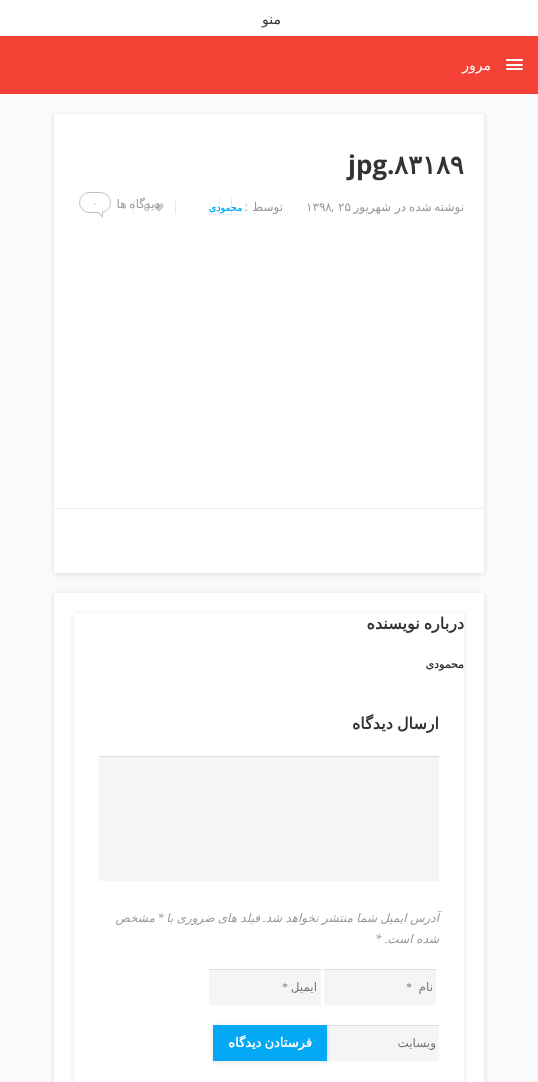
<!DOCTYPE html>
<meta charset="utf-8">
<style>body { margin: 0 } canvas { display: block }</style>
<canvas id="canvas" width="538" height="1082"></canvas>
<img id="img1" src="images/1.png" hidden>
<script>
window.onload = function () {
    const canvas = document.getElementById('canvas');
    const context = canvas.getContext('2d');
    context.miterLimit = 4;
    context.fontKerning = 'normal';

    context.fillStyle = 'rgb(250, 250, 252)';
    context.fillRect(0, 0, 538, 1082);
    context.fillStyle = 'rgb(255, 255, 255)';
    context.fillRect(0, 1, 538, 35);
    context.fillStyle = 'rgb(244, 67, 54)';
    context.fillRect(0, 36, 538, 58);
    context.fillStyle = 'rgb(255, 255, 255)';
    context.beginPath();
    context.roundRect(506, 59, 17, 2, 1);
    context.fill();
    context.beginPath();
    context.roundRect(506, 64, 17, 2, 1);
    context.fill();
    context.beginPath();
    context.roundRect(506, 68, 17, 2, 1);
    context.fill();
    context.fillStyle = 'rgba(190, 190, 190, 0.46)';
    context.filter = 'blur(2.5px)';
    context.beginPath();
    context.rect(54, 115, 430, 459);
    context.fill();
    context.filter = 'none';
    context.fillStyle = 'rgb(255, 255, 255)';
    context.fillRect(54, 114, 430, 459);
    context.beginPath();
    context.roundRect(79.5, 192.5, 31, 20, 10);
    context.strokeStyle = 'rgb(191, 191, 191)';
    context.stroke();
    context.fillStyle = 'rgb(191, 191, 191)';
    context.beginPath();
    context.moveTo(97, 212);
    context.lineTo(103, 212);
    context.lineTo(103, 218);
    context.closePath();
    context.fill();
    context.fillStyle = 'rgb(255, 255, 255)';
    context.beginPath();
    context.moveTo(99, 212);
    context.lineTo(102, 212);
    context.lineTo(102, 216);
    context.closePath();
    context.fill();
    context.fillStyle = 'rgb(233, 233, 233)';
    context.fillRect(231, 198, 1, 17);
    context.fillRect(219, 198, 1, 17);
    context.beginPath();
    context.moveTo(209, 214.5);
    context.lineTo(242, 214.5);
    context.strokeStyle = 'rgb(221, 221, 221)';
    context.setLineDash([1, 1]);
    context.stroke();
    context.fillRect(175, 200, 1, 14);
    context.fillRect(133, 200, 1, 14);
    context.drawImage(document.getElementById('img1'), 154, 203, 10, 9);
    context.fillStyle = 'rgb(240, 240, 240)';
    context.fillRect(54, 508, 430, 1);
    context.fillStyle = 'rgba(190, 190, 190, 0.46)';
    context.filter = 'blur(2.5px)';
    context.beginPath();
    context.rect(54, 594, 430, 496);
    context.fill();
    context.filter = 'none';
    context.fillStyle = 'rgb(255, 255, 255)';
    context.fillRect(54, 593, 430, 489);
    context.save();
    context.beginPath();
    context.moveTo(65, 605);
    context.lineTo(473, 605);
    context.lineTo(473, 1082);
    context.lineTo(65, 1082);
    context.closePath();
    context.moveTo(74, 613);
    context.lineTo(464, 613);
    context.lineTo(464, 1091);
    context.lineTo(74, 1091);
    context.closePath();
    context.clip('evenodd');
    context.fillStyle = 'rgba(190, 190, 190, 0.46)';
    context.filter = 'blur(2.5px)';
    context.beginPath();
    context.rect(74, 614, 390, 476);
    context.fill();
    context.filter = 'none';
    context.restore();
    context.fillStyle = 'rgb(245, 245, 245)';
    context.fillRect(99, 757, 340, 124);
    context.fillStyle = 'rgb(221, 221, 221)';
    context.fillRect(99, 756, 340, 1);
    context.fillStyle = 'rgb(245, 245, 245)';
    context.fillRect(324, 970, 112, 35);
    context.fillStyle = 'rgb(221, 221, 221)';
    context.fillRect(324, 969, 112, 1);
    context.fillStyle = 'rgb(245, 245, 245)';
    context.fillRect(209, 970, 112, 35);
    context.fillStyle = 'rgb(221, 221, 221)';
    context.fillRect(209, 969, 112, 1);
    context.fillStyle = 'rgb(245, 245, 245)';
    context.fillRect(327, 1026, 112, 35);
    context.fillStyle = 'rgb(221, 221, 221)';
    context.fillRect(327, 1025, 112, 1);
    context.fillStyle = 'rgba(190, 190, 190, 0.46)';
    context.filter = 'blur(2.5px)';
    context.beginPath();
    context.rect(213, 1026, 114, 36);
    context.fill();
    context.filter = 'none';
    context.fillStyle = 'rgb(3, 169, 244)';
    context.fillRect(213, 1025, 114, 36);
    context.letterSpacing = '1px';
    context.direction = 'rtl';
    context.font = '14px DejaVu Sans';
    context.fillStyle = 'rgb(51, 51, 51)';
    context.fillText('منو', 281, 24);
    context.fillStyle = 'rgb(255, 255, 255)';
    context.fillText('مرور', 491, 70);
    context.letterSpacing = '0px';
    context.direction = 'ltr';
    context.font = 'bold 26px DejaVu Sans';
    context.fillStyle = 'rgb(51, 51, 51)';
    context.fillText('۸۳۱۸۹', 394, 174);
    context.font = 'bold 26px Open Sans';
    context.fillText('jpg.', 348, 174);
    context.font = '12px DejaVu Sans';
    context.fillStyle = 'rgb(153, 153, 153)';
    context.fillText('۲۵', 338, 211);
    context.fillText('۱۳۹۸', 306, 211);
    context.direction = 'rtl';
    context.fillText('توسط', 283, 211);
    context.direction = 'ltr';
    context.fillStyle = 'rgb(191, 191, 191)';
    context.fillText('۰', 92, 207);
    context.wordSpacing = '-1px';
    context.direction = 'rtl';
    context.fillStyle = 'rgb(153, 153, 153)';
    context.fillText('نوشته شده در', 464, 211);
    context.wordSpacing = '0px';
    context.fillText('شهریور', 391, 211);
    context.direction = 'ltr';
    context.font = '12px Open Sans';
    context.fillText(',', 331, 211);
    context.direction = 'rtl';
    context.fillText(':', 248, 211);
    context.font = 'bold 9.5px DejaVu Sans';
    context.fillStyle = 'rgb(3, 169, 244)';
    context.fillText('محمودی', 242, 211);
    context.direction = 'ltr';
    context.font = '9.5px Open Sans';
    context.fillStyle = 'rgb(153, 153, 153)';
    context.fillText('0', 144, 211);
    context.wordSpacing = '-1px';
    context.direction = 'rtl';
    context.font = '12px DejaVu Sans';
    context.fillText('دیدگاه ها', 160, 208);
    context.font = 'bold 16px DejaVu Sans';
    context.fillStyle = 'rgb(51, 51, 51)';
    context.fillText('درباره نویسنده', 464, 629);
    context.wordSpacing = '0px';
    context.font = 'bold 11px DejaVu Sans';
    context.fillText('محمودی', 464, 668);
    context.wordSpacing = '-1px';
    context.font = 'bold 16px DejaVu Sans';
    context.fillText('ارسال دیدگاه', 439, 729);
    context.wordSpacing = '-0.5px';
    context.font = 'italic 12px DejaVu Sans';
    context.fillStyle = 'rgb(153, 153, 153)';
    context.fillText('آدرس ایمیل شما منتشر نخواهد شد', 439, 922);
    context.wordSpacing = '0px';
    context.font = 'italic 12px Open Sans';
    context.fillText('.', 266, 922);
    context.wordSpacing = '-0.5px';
    context.font = 'italic 12px DejaVu Sans';
    context.fillText('فیلد های ضروری با', 260, 922);
    context.wordSpacing = '0px';
    context.font = 'italic 12px Open Sans';
    context.fillText('*', 164, 922);
    context.font = 'italic 12px DejaVu Sans';
    context.fillText('مشخص', 155, 922);
    context.fillText('شده است', 439, 943);
    context.font = 'italic 12px Open Sans';
    context.fillText('.', 388, 943);
    context.direction = 'ltr';
    context.fillText('*', 375, 943);
    context.direction = 'rtl';
    context.font = '12px DejaVu Sans';
    context.fillStyle = 'rgb(117, 117, 117)';
    context.fillText('نام', 433, 991);
    context.font = '12px Liberation Serif';
    context.fillText('*', 412, 991);
    context.font = '12px DejaVu Sans';
    context.fillText('ایمیل', 317, 991);
    context.font = '12px Liberation Serif';
    context.fillText('*', 288, 991);
    context.font = '12px DejaVu Sans';
    context.fillText('وبسایت', 436, 1047);
    context.wordSpacing = '-1px';
    context.font = 'bold 13px DejaVu Sans';
    context.fillStyle = 'rgb(255, 255, 255)';
    context.fillText('فرستادن دیدگاه', 312, 1047);
};
</script>
